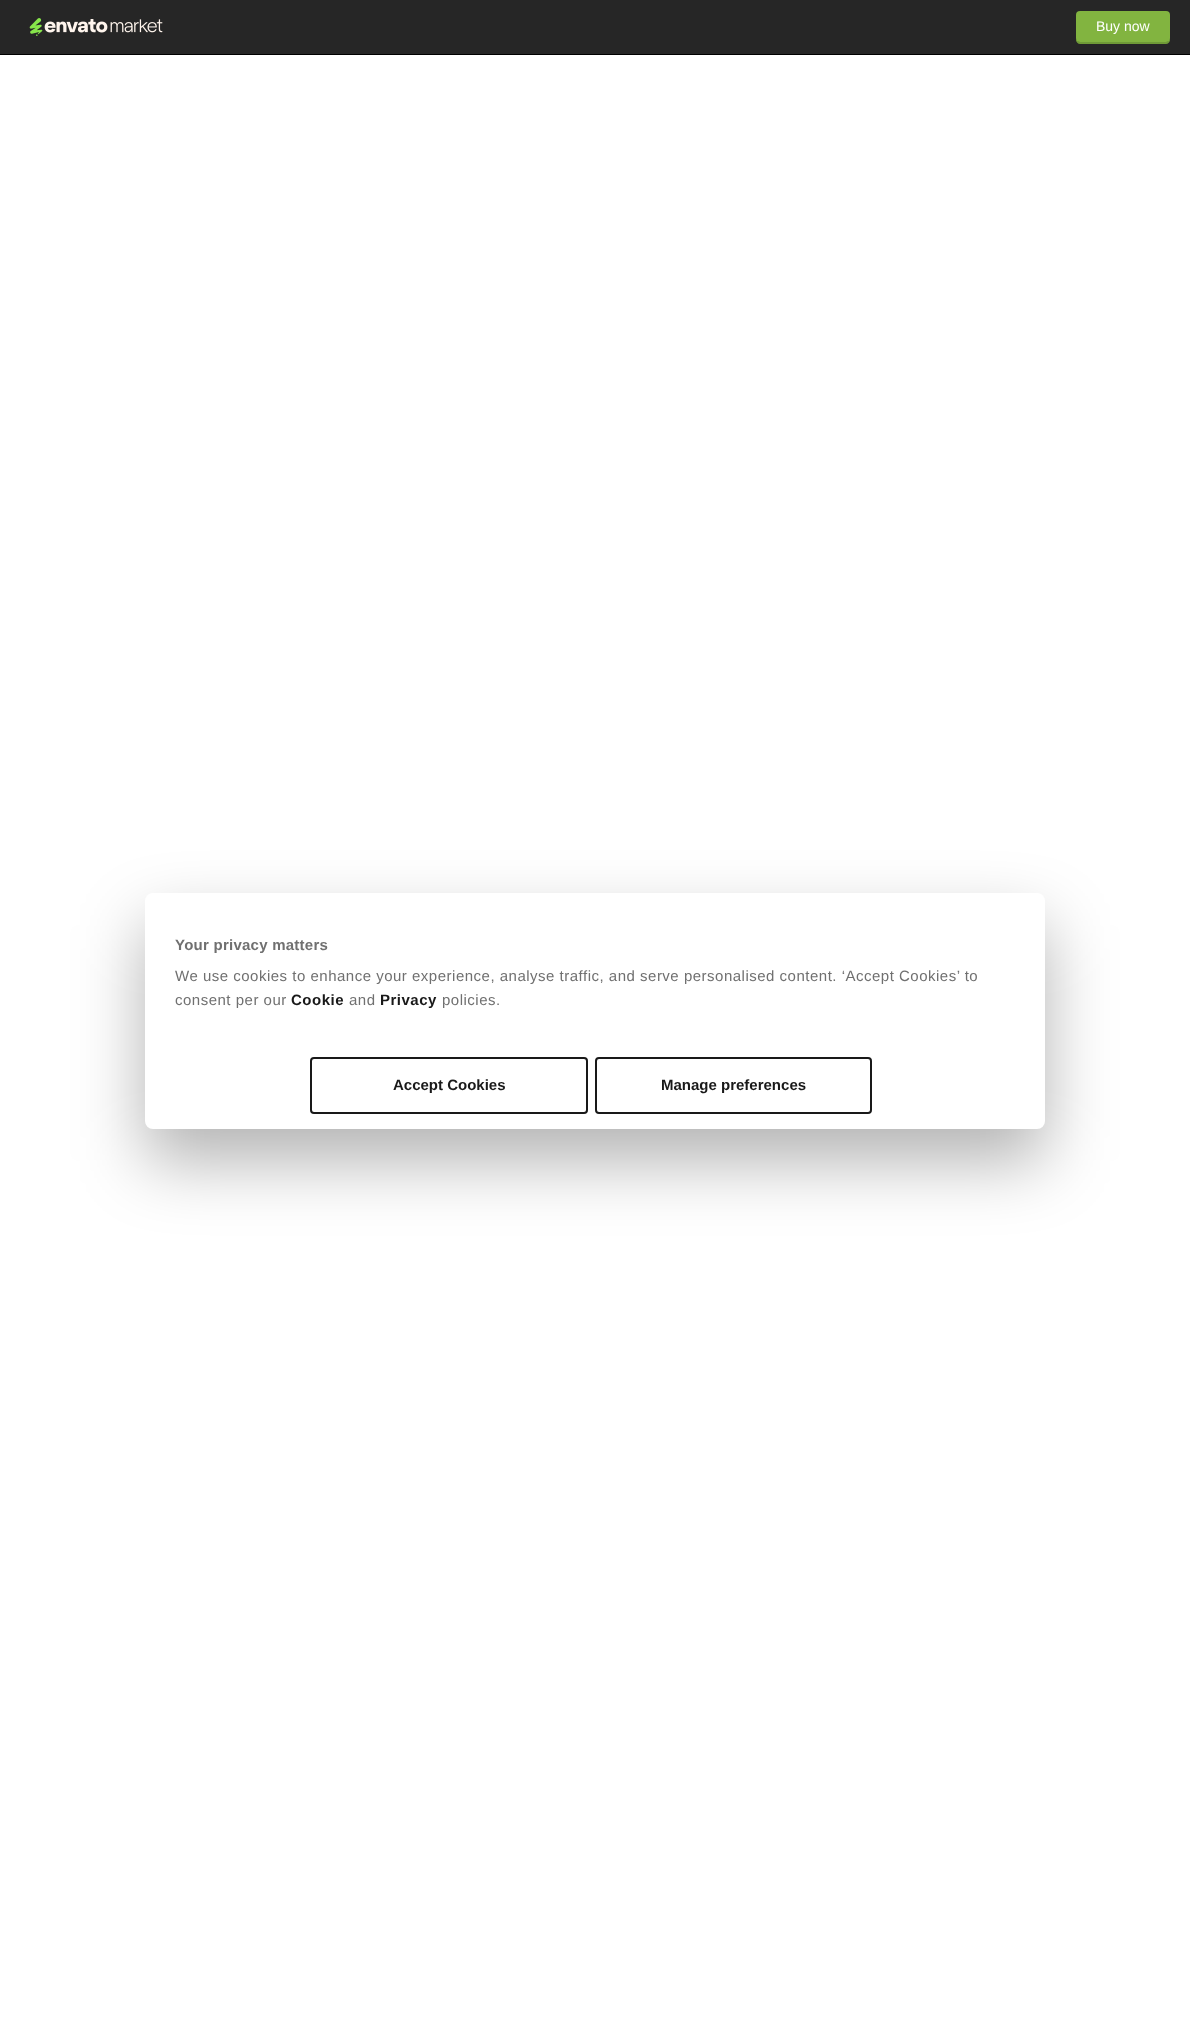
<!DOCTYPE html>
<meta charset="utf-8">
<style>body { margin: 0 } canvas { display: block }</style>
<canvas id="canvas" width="1190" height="2021"></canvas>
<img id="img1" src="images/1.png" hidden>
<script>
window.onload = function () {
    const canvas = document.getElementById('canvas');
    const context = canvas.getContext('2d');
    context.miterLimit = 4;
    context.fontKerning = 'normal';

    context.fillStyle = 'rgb(0, 0, 0)';
    context.fillRect(0, 0, 1190, 2021);
    context.fillStyle = 'rgb(38, 38, 38)';
    context.fillRect(0, 0, 1190, 54);
    context.drawImage(document.getElementById('img1'), 29, 18, 134, 18);
    context.fillStyle = 'rgb(111, 154, 55)';
    context.beginPath();
    context.moveTo(1076, 38);
    context.lineTo(1076, 40);
    context.bezierCurveTo(1076, 42, 1078, 44, 1080, 44);
    context.lineTo(1166, 44);
    context.bezierCurveTo(1168, 44, 1170, 42, 1170, 40);
    context.lineTo(1170, 38);
    context.bezierCurveTo(1170, 40, 1168, 42, 1166, 42);
    context.lineTo(1080, 42);
    context.bezierCurveTo(1078, 42, 1076, 40, 1076, 38);
    context.closePath();
    context.fill();
    context.fillStyle = 'rgb(130, 180, 64)';
    context.beginPath();
    context.roundRect(1076, 11, 94, 31, 4);
    context.fill();
    context.fillStyle = 'rgb(255, 255, 255)';
    context.fillRect(0, 55, 1190, 1966);
    context.fillStyle = 'rgba(0, 0, 0, 0.3)';
    context.filter = 'blur(34px)';
    context.beginPath();
    context.roundRect(145, 925, 900, 236, 8);
    context.fill();
    context.filter = 'none';
    context.fillStyle = 'rgb(255, 255, 255)';
    context.beginPath();
    context.roundRect(145, 893, 900, 236, 8);
    context.fill();
    context.beginPath();
    context.roundRect(311, 1058, 276, 55, 3);
    context.strokeStyle = 'rgb(25, 25, 25)';
    context.lineWidth = 2;
    context.stroke();
    context.beginPath();
    context.roundRect(596, 1058, 275, 55, 3);
    context.stroke();
    context.font = '14px Liberation Sans';
    context.fillText('Buy now', 1096, 31);
    context.letterSpacing = '0.25px';
    context.font = 'bold 15px Liberation Sans';
    context.fillStyle = 'rgb(112, 112, 112)';
    context.fillText('Your privacy matters', 175, 950);
    context.letterSpacing = '0.5px';
    context.font = '15px Liberation Sans';
    context.fillText('We use cookies to enhance your experience, analyse traffic, and serve personalised content. ‘Accept Cookies’ to', 175, 981);
    context.fillText('consent per our', 175, 1005);
    context.font = 'bold 15px Liberation Sans';
    context.fillStyle = 'rgb(25, 25, 25)';
    context.fillText('Cookie', 291, 1005);
    context.font = '15px Liberation Sans';
    context.fillStyle = 'rgb(112, 112, 112)';
    context.fillText('and', 349, 1005);
    context.font = 'bold 15px Liberation Sans';
    context.fillStyle = 'rgb(25, 25, 25)';
    context.fillText('Privacy', 380, 1005);
    context.font = '15px Liberation Sans';
    context.fillStyle = 'rgb(112, 112, 112)';
    context.fillText('policies.', 442, 1005);
    context.letterSpacing = '0px';
    context.font = 'bold 15px Liberation Sans';
    context.fillStyle = 'rgb(25, 25, 25)';
    context.fillText('Accept Cookies', 393, 1090);
    context.fillText('Manage preferences', 661, 1090);
};
</script>
